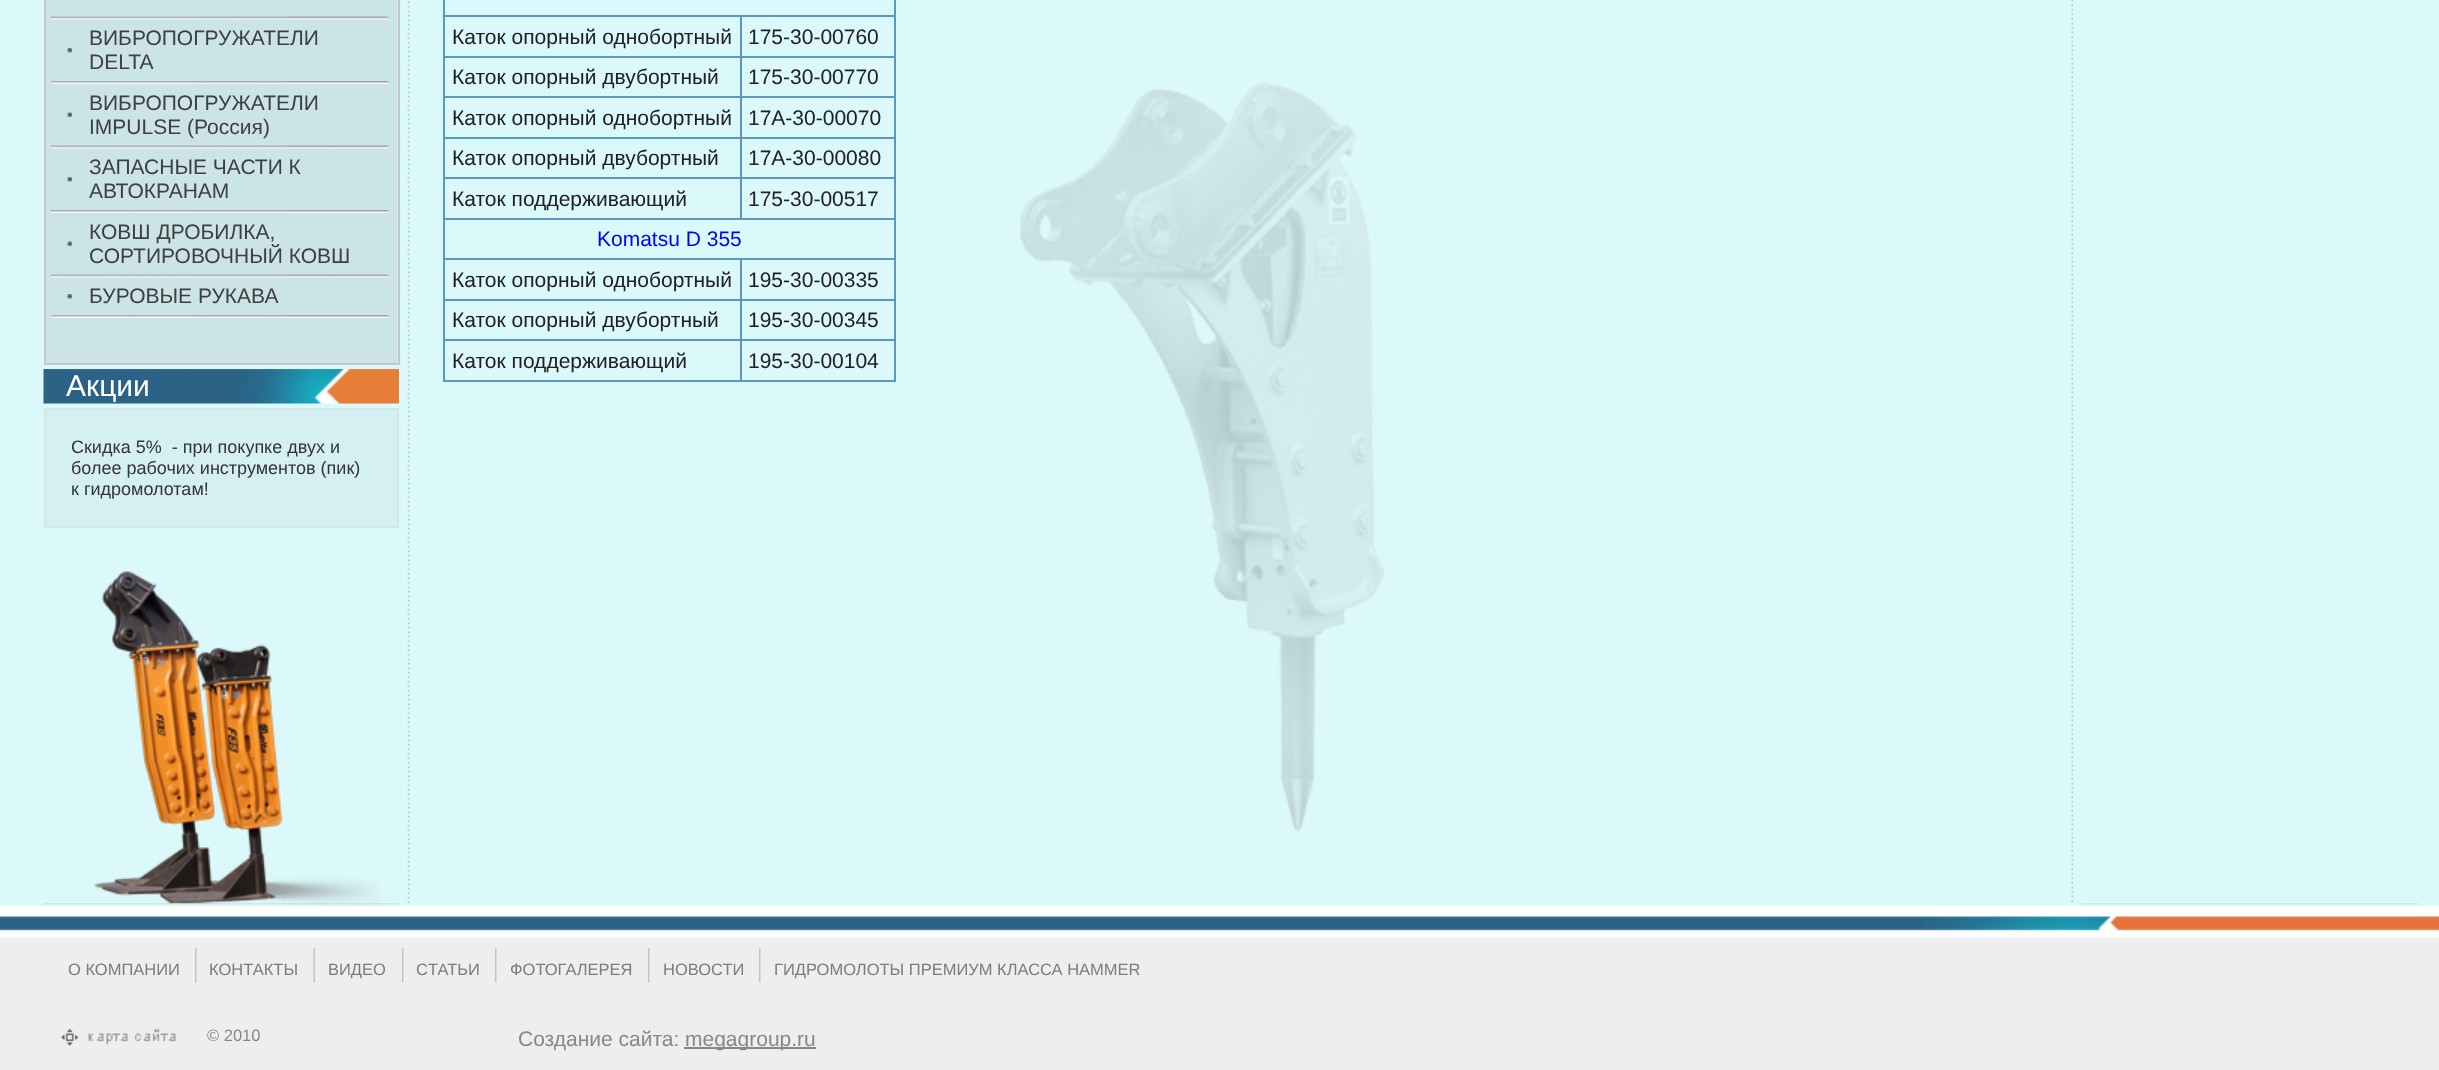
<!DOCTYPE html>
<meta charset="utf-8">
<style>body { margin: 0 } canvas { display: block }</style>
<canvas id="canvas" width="2439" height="1070"></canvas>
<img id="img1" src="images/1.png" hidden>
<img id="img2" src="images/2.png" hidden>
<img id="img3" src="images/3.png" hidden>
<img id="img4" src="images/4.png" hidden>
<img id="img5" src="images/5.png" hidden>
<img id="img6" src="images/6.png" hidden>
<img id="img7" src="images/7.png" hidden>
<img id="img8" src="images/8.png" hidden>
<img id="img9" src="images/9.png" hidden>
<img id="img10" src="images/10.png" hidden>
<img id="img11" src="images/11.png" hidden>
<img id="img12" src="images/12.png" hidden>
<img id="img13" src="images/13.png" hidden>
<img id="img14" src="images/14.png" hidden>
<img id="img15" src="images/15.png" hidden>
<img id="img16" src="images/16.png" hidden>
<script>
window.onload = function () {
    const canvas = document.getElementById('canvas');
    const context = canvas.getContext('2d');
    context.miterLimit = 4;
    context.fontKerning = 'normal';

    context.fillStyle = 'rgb(219, 248, 251)';
    context.fillRect(0, 0, 2439, 1070);
    context.drawImage(document.getElementById('img1'), 407, 1, 3, 902);
    context.drawImage(document.getElementById('img2'), 2071, 0, 3, 902);
    context.drawImage(document.getElementById('img3'), 1020, 81, 365, 750);
    context.drawImage(document.getElementById('img4'), 46, 0, 352, 363);
    context.fillStyle = 'rgb(200, 200, 200)';
    context.fillRect(398, 0, 2, 365);
    context.fillRect(44, 363, 355, 2);
    context.fillRect(44, 0, 2, 365);
    context.drawImage(document.getElementById('img5'), 51, 16, 338, 4);
    context.drawImage(document.getElementById('img6'), 51, 81, 338, 3);
    context.drawImage(document.getElementById('img7'), 67, 48, 5, 5);
    context.drawImage(document.getElementById('img5'), 51, 145, 338, 4);
    context.drawImage(document.getElementById('img8'), 67, 112, 5, 5);
    context.drawImage(document.getElementById('img6'), 51, 210, 338, 3);
    context.drawImage(document.getElementById('img7'), 67, 177, 5, 5);
    context.drawImage(document.getElementById('img5'), 51, 274, 338, 4);
    context.drawImage(document.getElementById('img8'), 67, 241, 5, 5);
    context.drawImage(document.getElementById('img6'), 51, 315, 338, 3);
    context.drawImage(document.getElementById('img7'), 67, 294, 5, 5);
    context.drawImage(document.getElementById('img9'), 43, 369, 356, 35);
    context.fillStyle = 'rgb(213, 240, 243)';
    context.beginPath();
    context.rect(45, 409, 353, 118);
    context.fill();
    context.strokeStyle = 'rgb(211, 229, 231)';
    context.lineWidth = 2;
    context.stroke();
    context.fillStyle = 'rgb(91, 153, 194)';
    context.fillRect(740, 15, 156, 2);
    context.fillRect(740, 56, 156, 2);
    context.fillRect(740, 96, 156, 2);
    context.fillRect(740, 137, 156, 2);
    context.fillRect(740, 177, 156, 2);
    context.fillRect(443, 218, 453, 2);
    context.fillRect(740, 177, 2, 42);
    context.fillRect(443, 177, 298, 2);
    context.fillRect(740, 137, 2, 42);
    context.fillRect(443, 137, 298, 2);
    context.fillRect(740, 96, 2, 42);
    context.fillRect(443, 96, 298, 2);
    context.fillRect(740, 56, 2, 42);
    context.fillRect(443, 56, 298, 2);
    context.fillRect(740, 15, 2, 42);
    context.fillRect(443, 15, 298, 2);
    context.fillRect(740, 258, 156, 2);
    context.fillRect(740, 299, 156, 2);
    context.fillRect(740, 339, 156, 2);
    context.fillRect(894, 339, 2, 42);
    context.fillRect(740, 380, 156, 2);
    context.fillRect(740, 339, 2, 42);
    context.fillRect(443, 339, 298, 2);
    context.fillRect(740, 299, 2, 42);
    context.fillRect(443, 299, 298, 2);
    context.fillRect(740, 258, 2, 42);
    context.fillRect(443, 258, 298, 2);
    context.fillRect(443, 380, 298, 2);
    context.fillRect(443, 339, 2, 42);
    context.fillRect(443, 299, 2, 42);
    context.fillRect(443, 258, 2, 42);
    context.fillRect(443, 218, 2, 42);
    context.fillRect(443, 177, 2, 42);
    context.fillRect(443, 137, 2, 42);
    context.fillRect(443, 96, 2, 42);
    context.fillRect(443, 56, 2, 42);
    context.fillRect(443, 0, 2, 57);
    context.fillRect(894, 299, 2, 42);
    context.fillRect(894, 258, 2, 42);
    context.fillRect(894, 218, 2, 42);
    context.fillRect(894, 177, 2, 42);
    context.fillRect(894, 137, 2, 42);
    context.fillRect(894, 96, 2, 42);
    context.fillRect(894, 56, 2, 42);
    context.fillRect(894, 0, 2, 57);
    context.drawImage(document.getElementById('img10'), 0, 903, 2439, 167);
    context.drawImage(document.getElementById('img11'), 43, 903, 356, 2);
    context.drawImage(document.getElementById('img12'), 1923, 903, 516, 28);
    context.drawImage(document.getElementById('img13'), 94, 571, 287, 335);
    context.drawImage(document.getElementById('img14'), 195, 948, 2, 35);
    context.drawImage(document.getElementById('img15'), 313, 948, 2, 35);
    context.drawImage(document.getElementById('img14'), 402, 948, 2, 35);
    context.drawImage(document.getElementById('img14'), 495, 948, 2, 35);
    context.drawImage(document.getElementById('img14'), 648, 948, 2, 35);
    context.drawImage(document.getElementById('img14'), 759, 948, 2, 35);
    context.drawImage(document.getElementById('img16'), 61, 1029, 115, 17);
    context.fillStyle = 'rgb(136, 136, 136)';
    context.fillRect(684, 1047, 132, 2);
    context.font = '21px Liberation Sans';
    context.fillStyle = 'rgb(63, 63, 63)';
    context.fillText('ВИБРОПОГРУЖАТЕЛИ', 89, 45);
    context.fillText('DELTA', 89, 69);
    context.fillText('ВИБРОПОГРУЖАТЕЛИ', 89, 110);
    context.fillText('IMPULSE (Россия)', 89, 134);
    context.fillText('ЗАПАСНЫЕ ЧАСТИ К', 89, 174);
    context.fillText('АВТОКРАНАМ', 89, 198);
    context.fillText('КОВШ ДРОБИЛКА,', 89, 239);
    context.fillText('СОРТИРОВОЧНЫЙ КОВШ', 89, 263);
    context.fillText('БУРОВЫЕ РУКАВА', 89, 303);
    context.font = '30px Liberation Sans';
    context.fillStyle = 'rgb(255, 255, 255)';
    context.fillText('Акции', 66, 396);
    context.font = '18px Liberation Sans';
    context.fillStyle = 'rgb(52, 52, 52)';
    context.fillText('Скидка 5%  - при покупке двух и', 71, 453);
    context.fillText('более рабочих инструментов (пик)', 71, 474);
    context.fillText('к гидромолотам!', 71, 495);
    context.font = '21px Liberation Sans';
    context.fillStyle = 'rgb(32, 32, 32)';
    context.fillText('Каток опорный однобортный', 452, 44);
    context.fillText('175-30-00760', 748, 44);
    context.fillText('Каток опорный двубортный', 452, 84);
    context.fillText('175-30-00770', 748, 84);
    context.fillText('Каток опорный однобортный', 452, 125);
    context.fillText('17А-30-00070', 748, 125);
    context.fillText('Каток опорный двубортный', 452, 165);
    context.fillText('17А-30-00080', 748, 165);
    context.fillText('Каток поддерживающий', 452, 206);
    context.fillText('175-30-00517', 748, 206);
    context.fillStyle = 'rgb(0, 0, 255)';
    context.fillText('Komatsu D 355', 597, 246);
    context.fillStyle = 'rgb(32, 32, 32)';
    context.fillText('Каток опорный однобортный', 452, 287);
    context.fillText('195-30-00335', 748, 287);
    context.fillText('Каток опорный двубортный', 452, 327);
    context.fillText('195-30-00345', 748, 327);
    context.fillText('Каток поддерживающий', 452, 368);
    context.fillText('195-30-00104', 748, 368);
    context.font = '16.5px Liberation Sans';
    context.fillStyle = 'rgb(124, 124, 124)';
    context.fillText('О КОМПАНИИ', 68, 975);
    context.fillText('КОНТАКТЫ', 209, 975);
    context.fillText('ВИДЕО', 328, 975);
    context.fillText('CТАТЬИ', 416, 975);
    context.fillText('ФОТОГАЛЕРЕЯ', 510, 975);
    context.fillText('НОВОСТИ', 663, 975);
    context.fillText('ГИДРОМОЛОТЫ ПРЕМИУМ КЛАССА HAMMER', 774, 975);
    context.fillStyle = 'rgb(136, 136, 136)';
    context.fillText('© 2010', 207, 1041);
    context.font = '21px Liberation Sans';
    context.fillText('Создание сайта:', 518, 1046);
    context.fillText('megagroup.ru', 685, 1046);
};
</script>
